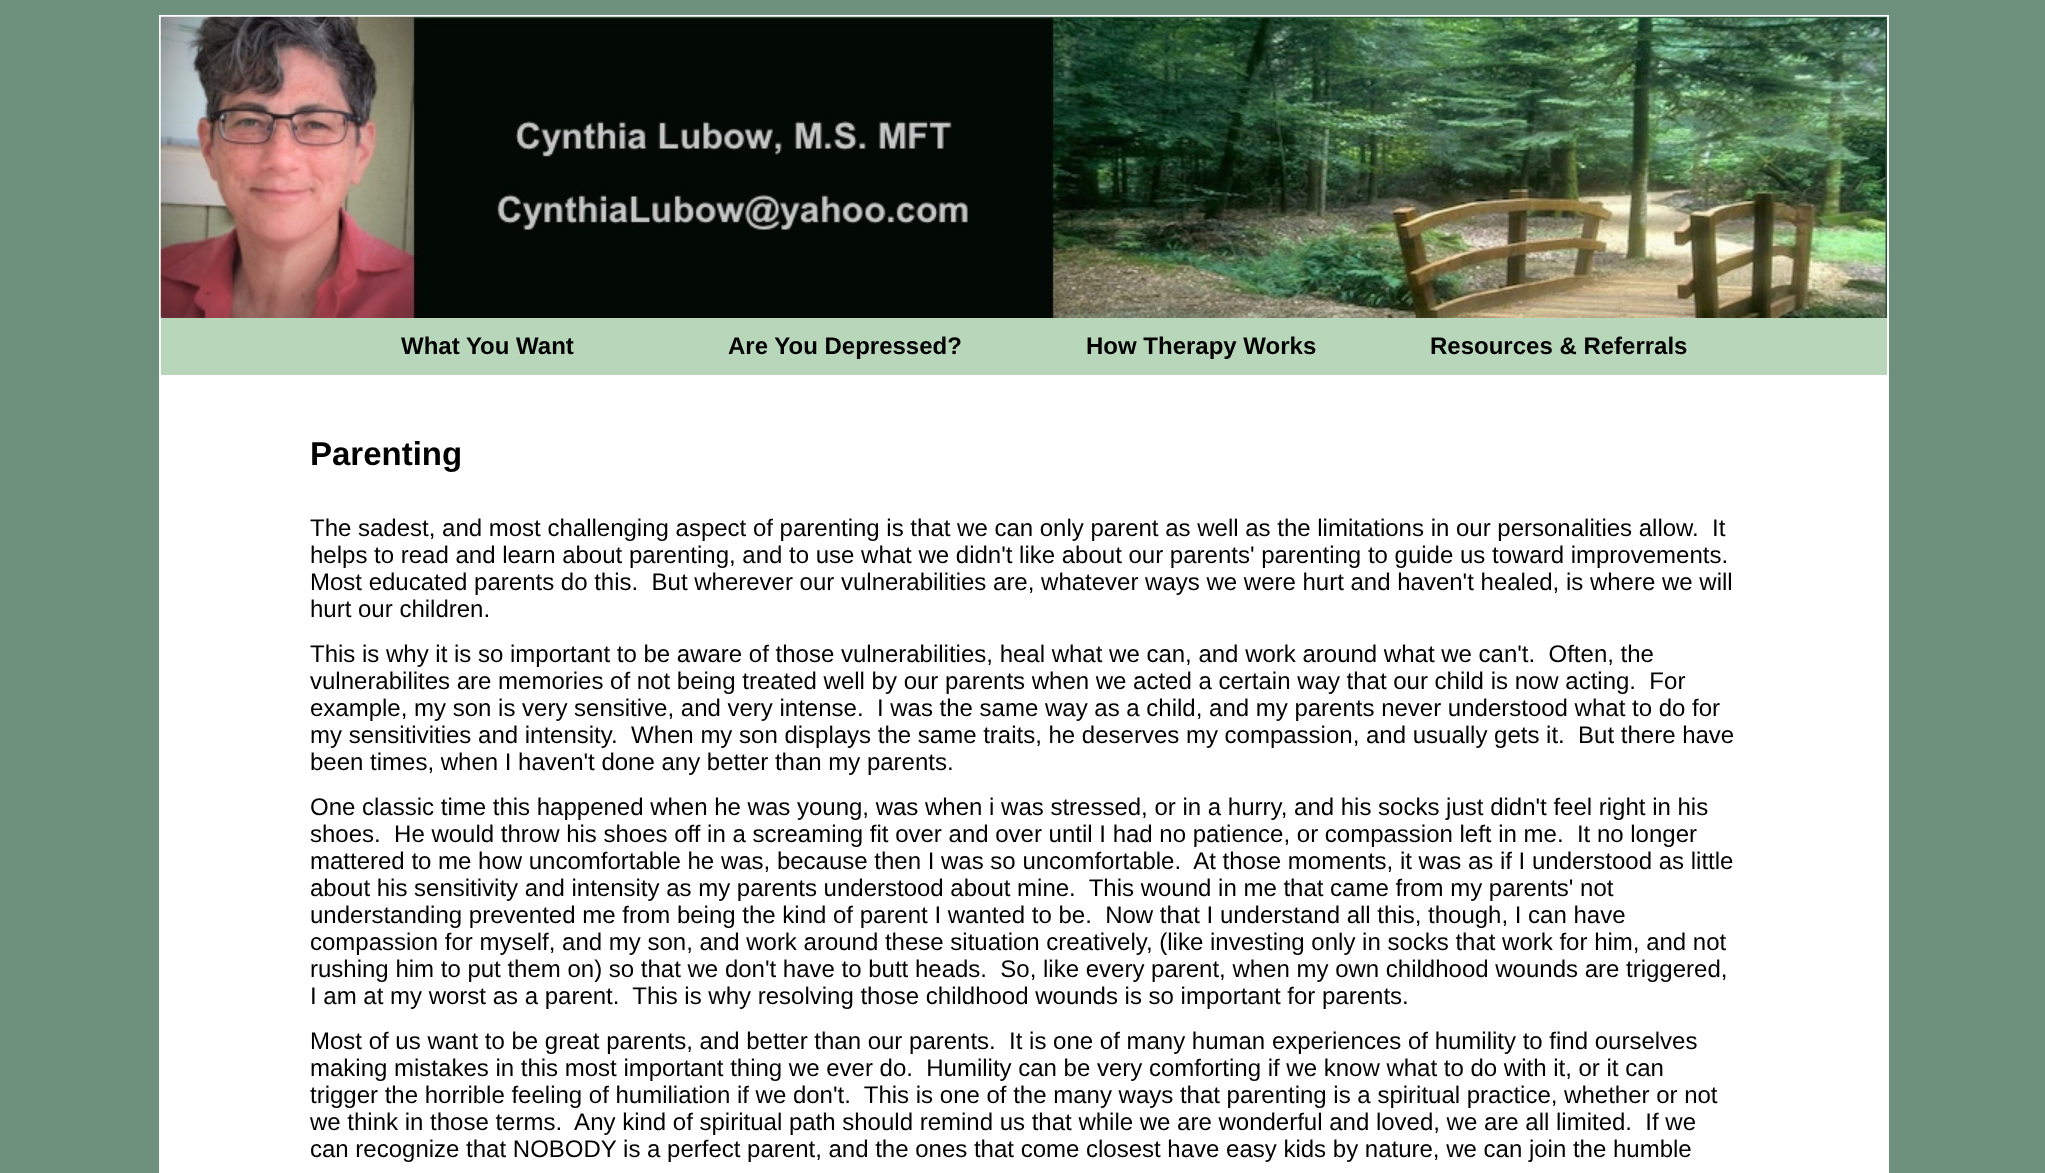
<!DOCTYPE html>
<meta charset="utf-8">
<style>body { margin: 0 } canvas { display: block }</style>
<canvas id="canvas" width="2045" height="1173"></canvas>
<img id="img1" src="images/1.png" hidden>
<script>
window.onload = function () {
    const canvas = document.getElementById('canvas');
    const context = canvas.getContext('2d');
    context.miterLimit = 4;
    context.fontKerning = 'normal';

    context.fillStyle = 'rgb(110, 145, 126)';
    context.fillRect(0, 0, 2045, 1173);
    context.fillStyle = 'rgb(255, 255, 255)';
    context.fillRect(159, 15, 1730, 1158);
    context.drawImage(document.getElementById('img1'), 160, 16, 1727, 302);
    context.fillStyle = 'rgb(184, 214, 186)';
    context.fillRect(161, 318, 1726, 57);
    context.font = 'bold 24px Liberation Sans';
    context.fillStyle = 'rgb(0, 0, 0)';
    context.fillText('What You Want', 401, 354);
    context.fillText('Are You Depressed?', 728, 354);
    context.fillText('How Therapy Works', 1086, 354);
    context.fillText('Resources & Referrals', 1430, 354);
    context.font = 'bold 33px Liberation Sans';
    context.fillText('Parenting', 310, 465);
    context.font = '24px Liberation Sans';
    context.fillText('The sadest, and most challenging aspect of parenting is that we can only parent as well as the limitations in our personalities allow.  It', 310, 536);
    context.fillText('helps to read and learn about parenting, and to use what we didn\'t like about our parents\' parenting to guide us toward improvements.', 310, 563);
    context.fillText('Most educated parents do this.  But wherever our vulnerabilities are, whatever ways we were hurt and haven\'t healed, is where we will', 310, 590);
    context.fillText('hurt our children.', 310, 617);
    context.fillText('This is why it is so important to be aware of those vulnerabilities, heal what we can, and work around what we can\'t.  Often, the', 310, 662);
    context.fillText('vulnerabilites are memories of not being treated well by our parents when we acted a certain way that our child is now acting.  For', 310, 689);
    context.fillText('example, my son is very sensitive, and very intense.  I was the same way as a child, and my parents never understood what to do for', 310, 716);
    context.fillText('my sensitivities and intensity.  When my son displays the same traits, he deserves my compassion, and usually gets it.  But there have', 310, 743);
    context.fillText('been times, when I haven\'t done any better than my parents.', 310, 770);
    context.fillText('One classic time this happened when he was young, was when i was stressed, or in a hurry, and his socks just didn\'t feel right in his', 310, 815);
    context.fillText('shoes.  He would throw his shoes off in a screaming fit over and over until I had no patience, or compassion left in me.  It no longer', 310, 842);
    context.fillText('mattered to me how uncomfortable he was, because then I was so uncomfortable.  At those moments, it was as if I understood as little', 310, 869);
    context.fillText('about his sensitivity and intensity as my parents understood about mine.  This wound in me that came from my parents\' not', 310, 896);
    context.fillText('understanding prevented me from being the kind of parent I wanted to be.  Now that I understand all this, though, I can have', 310, 923);
    context.fillText('compassion for myself, and my son, and work around these situation creatively, (like investing only in socks that work for him, and not', 310, 950);
    context.fillText('rushing him to put them on) so that we don\'t have to butt heads.  So, like every parent, when my own childhood wounds are triggered,', 310, 977);
    context.fillText('I am at my worst as a parent.  This is why resolving those childhood wounds is so important for parents.', 310, 1004);
    context.fillText('Most of us want to be great parents, and better than our parents.  It is one of many human experiences of humility to find ourselves', 310, 1049);
    context.fillText('making mistakes in this most important thing we ever do.  Humility can be very comforting if we know what to do with it, or it can', 310, 1076);
    context.fillText('trigger the horrible feeling of humiliation if we don\'t.  This is one of the many ways that parenting is a spiritual practice, whether or not', 310, 1103);
    context.fillText('we think in those terms.  Any kind of spiritual path should remind us that while we are wonderful and loved, we are all limited.  If we', 310, 1130);
    context.fillText('can recognize that NOBODY is a perfect parent, and the ones that come closest have easy kids by nature, we can join the humble', 310, 1157);
};
</script>
